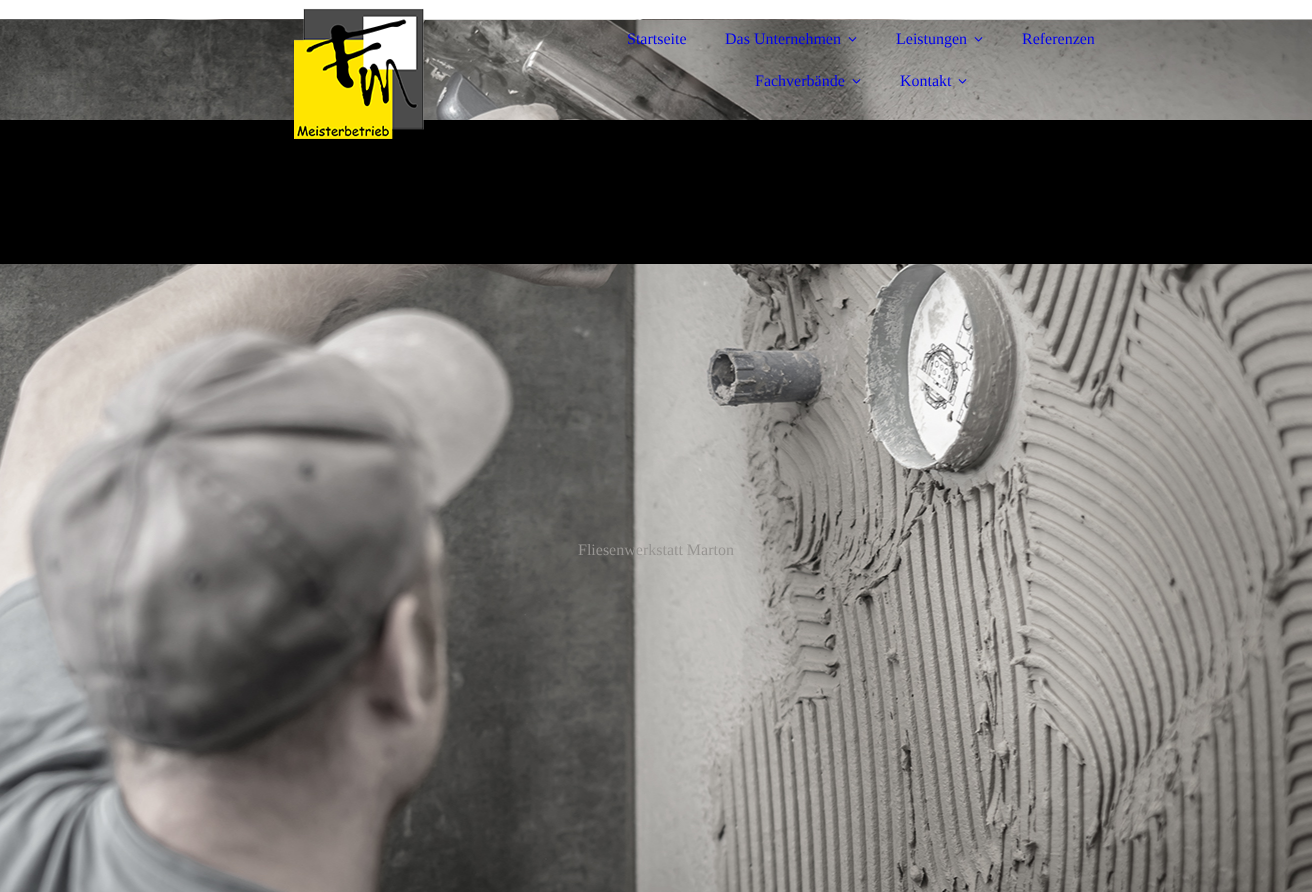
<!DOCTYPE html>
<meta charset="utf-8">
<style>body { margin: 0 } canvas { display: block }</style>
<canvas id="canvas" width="1312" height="892"></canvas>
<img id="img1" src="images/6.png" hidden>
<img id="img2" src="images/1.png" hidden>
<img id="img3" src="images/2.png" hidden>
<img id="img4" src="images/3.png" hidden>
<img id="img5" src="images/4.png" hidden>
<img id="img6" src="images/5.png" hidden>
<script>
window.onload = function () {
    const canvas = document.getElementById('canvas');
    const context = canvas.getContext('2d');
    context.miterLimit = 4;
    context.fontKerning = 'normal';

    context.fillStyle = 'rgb(255, 255, 255)';
    context.fillRect(0, 0, 1312, 892);
    context.drawImage(document.getElementById('img1'), 0, 19, 1312, 873);
    context.fillStyle = 'rgb(0, 0, 0)';
    context.fillRect(0, 120, 1312, 144);
    context.drawImage(document.getElementById('img2'), 294, 8, 130, 131);
    context.drawImage(document.getElementById('img3'), 848, 37, 9, 5);
    context.drawImage(document.getElementById('img4'), 974, 37, 9, 5);
    context.drawImage(document.getElementById('img5'), 852, 79, 9, 5);
    context.drawImage(document.getElementById('img6'), 958, 79, 9, 5);
    context.font = '16px Liberation Serif';
    context.fillStyle = 'rgb(0, 0, 238)';
    context.fillText('Startseite', 627, 44);
    context.fillText('Das Unternehmen', 725, 44);
    context.fillText('Leistungen', 896, 44);
    context.fillText('Referenzen', 1022, 44);
    context.fillText('Fachverbände', 755, 86);
    context.fillText('Kontakt', 900, 86);
    context.fillStyle = 'rgb(151, 149, 146)';
    context.fillText('Fliesenwerkstatt Marton', 578, 555);
};
</script>
